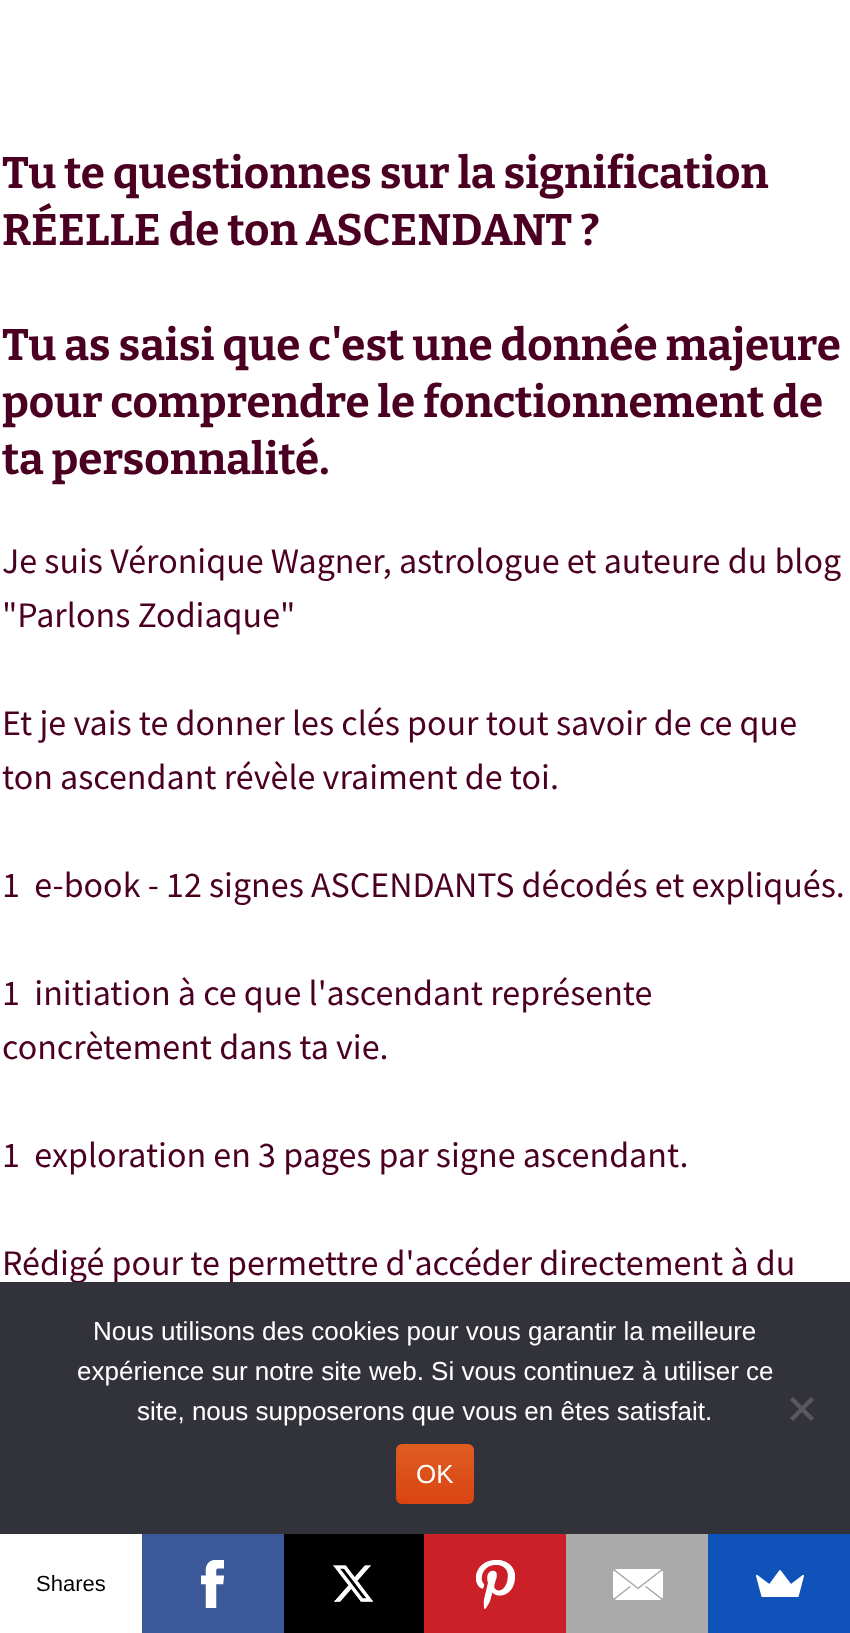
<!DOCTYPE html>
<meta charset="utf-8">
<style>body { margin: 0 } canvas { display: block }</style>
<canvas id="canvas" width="850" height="1633"></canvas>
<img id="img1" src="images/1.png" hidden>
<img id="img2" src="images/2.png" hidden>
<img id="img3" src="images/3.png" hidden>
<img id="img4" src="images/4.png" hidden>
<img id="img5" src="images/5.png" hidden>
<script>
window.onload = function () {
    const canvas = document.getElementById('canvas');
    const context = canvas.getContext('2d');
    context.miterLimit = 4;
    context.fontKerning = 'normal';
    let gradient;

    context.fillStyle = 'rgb(255, 255, 255)';
    context.fillRect(0, 0, 850, 1633);
    context.fillStyle = 'rgb(59, 89, 152)';
    context.fillRect(142, 1534, 142, 99);
    context.drawImage(document.getElementById('img1'), 201, 1560, 23, 48);
    context.fillStyle = 'rgb(0, 0, 0)';
    context.fillRect(284, 1534, 140, 99);
    context.drawImage(document.getElementById('img2'), 333, 1565, 40, 37);
    context.fillStyle = 'rgb(203, 32, 39)';
    context.fillRect(424, 1534, 142, 99);
    context.drawImage(document.getElementById('img3'), 476, 1560, 39, 49);
    context.fillStyle = 'rgb(170, 170, 170)';
    context.fillRect(566, 1534, 142, 99);
    context.drawImage(document.getElementById('img4'), 613, 1569, 50, 31);
    context.fillStyle = 'rgb(15, 82, 186)';
    context.fillRect(708, 1534, 142, 99);
    context.drawImage(document.getElementById('img5'), 756, 1570, 48, 27);
    context.font = '100 44px Bitter';
    context.fillStyle = 'rgb(75, 0, 35)';
    context.fillText('Tu te questionnes sur la signification', 2, 188);
    context.fillText('RÉELLE de ton ASCENDANT ?', 2, 245);
    context.fillText('Tu as saisi que c\'est une donnée majeure', 2, 360);
    context.fillText('pour comprendre le fonctionnement de', 2, 417);
    context.fillText('ta personnalité.', 2, 474);
    context.font = '36px Source Sans Pro';
    context.fillText('Je suis Véronique Wagner, astrologue et auteure du blog', 2, 573);
    context.fillText('"Parlons Zodiaque"', 2, 627);
    context.fillText('Et je vais te donner les clés pour tout savoir de ce que', 2, 735);
    context.fillText('ton ascendant révèle vraiment de toi.', 2, 789);
    context.fillText('1  e-book - 12 signes ASCENDANTS décodés et expliqués.', 2, 897);
    context.fillText('1  initiation à ce que l\'ascendant représente', 2, 1005);
    context.fillText('concrètement dans ta vie.', 2, 1059);
    context.fillText('1  exploration en 3 pages par signe ascendant.', 2, 1167);
    context.fillText('Rédigé pour te permettre d\'accéder directement à du', 2, 1275);
    context.fillStyle = 'rgb(50, 50, 58)';
    context.fillRect(0, 1282, 850, 252);
    context.font = '26px Liberation Sans';
    context.fillStyle = 'rgb(255, 255, 255)';
    context.fillText('Nous utilisons des cookies pour vous garantir la meilleure', 93, 1340);
    context.fillText('expérience sur notre site web. Si vous continuez à utiliser ce', 77, 1380);
    context.fillText('site, nous supposerons que vous en êtes satisfait.', 137, 1420);
    context.fillStyle = 'rgb(89, 89, 93)';
    context.beginPath();
    context.moveTo(811, 1397);
    context.lineTo(814, 1400);
    context.lineTo(793, 1421);
    context.lineTo(790, 1418);
    context.closePath();
    context.fill();
    context.beginPath();
    context.moveTo(790, 1400);
    context.lineTo(793, 1397);
    context.lineTo(814, 1418);
    context.lineTo(811, 1421);
    context.closePath();
    context.fill();
    gradient = context.createLinearGradient(435, 1444, 435, 1504);
    gradient.addColorStop(0, 'rgb(224, 93, 34)');
    gradient.addColorStop(1, 'rgb(217, 68, 18)');
    context.fillStyle = gradient;
    context.beginPath();
    context.roundRect(396, 1444, 78, 60, 6);
    context.fill();
    context.fillStyle = 'rgb(255, 255, 255)';
    context.fillText('OK', 416, 1483);
    context.font = '22px Liberation Sans';
    context.fillStyle = 'rgb(0, 0, 0)';
    context.fillText('Shares', 36, 1591);
};
</script>
